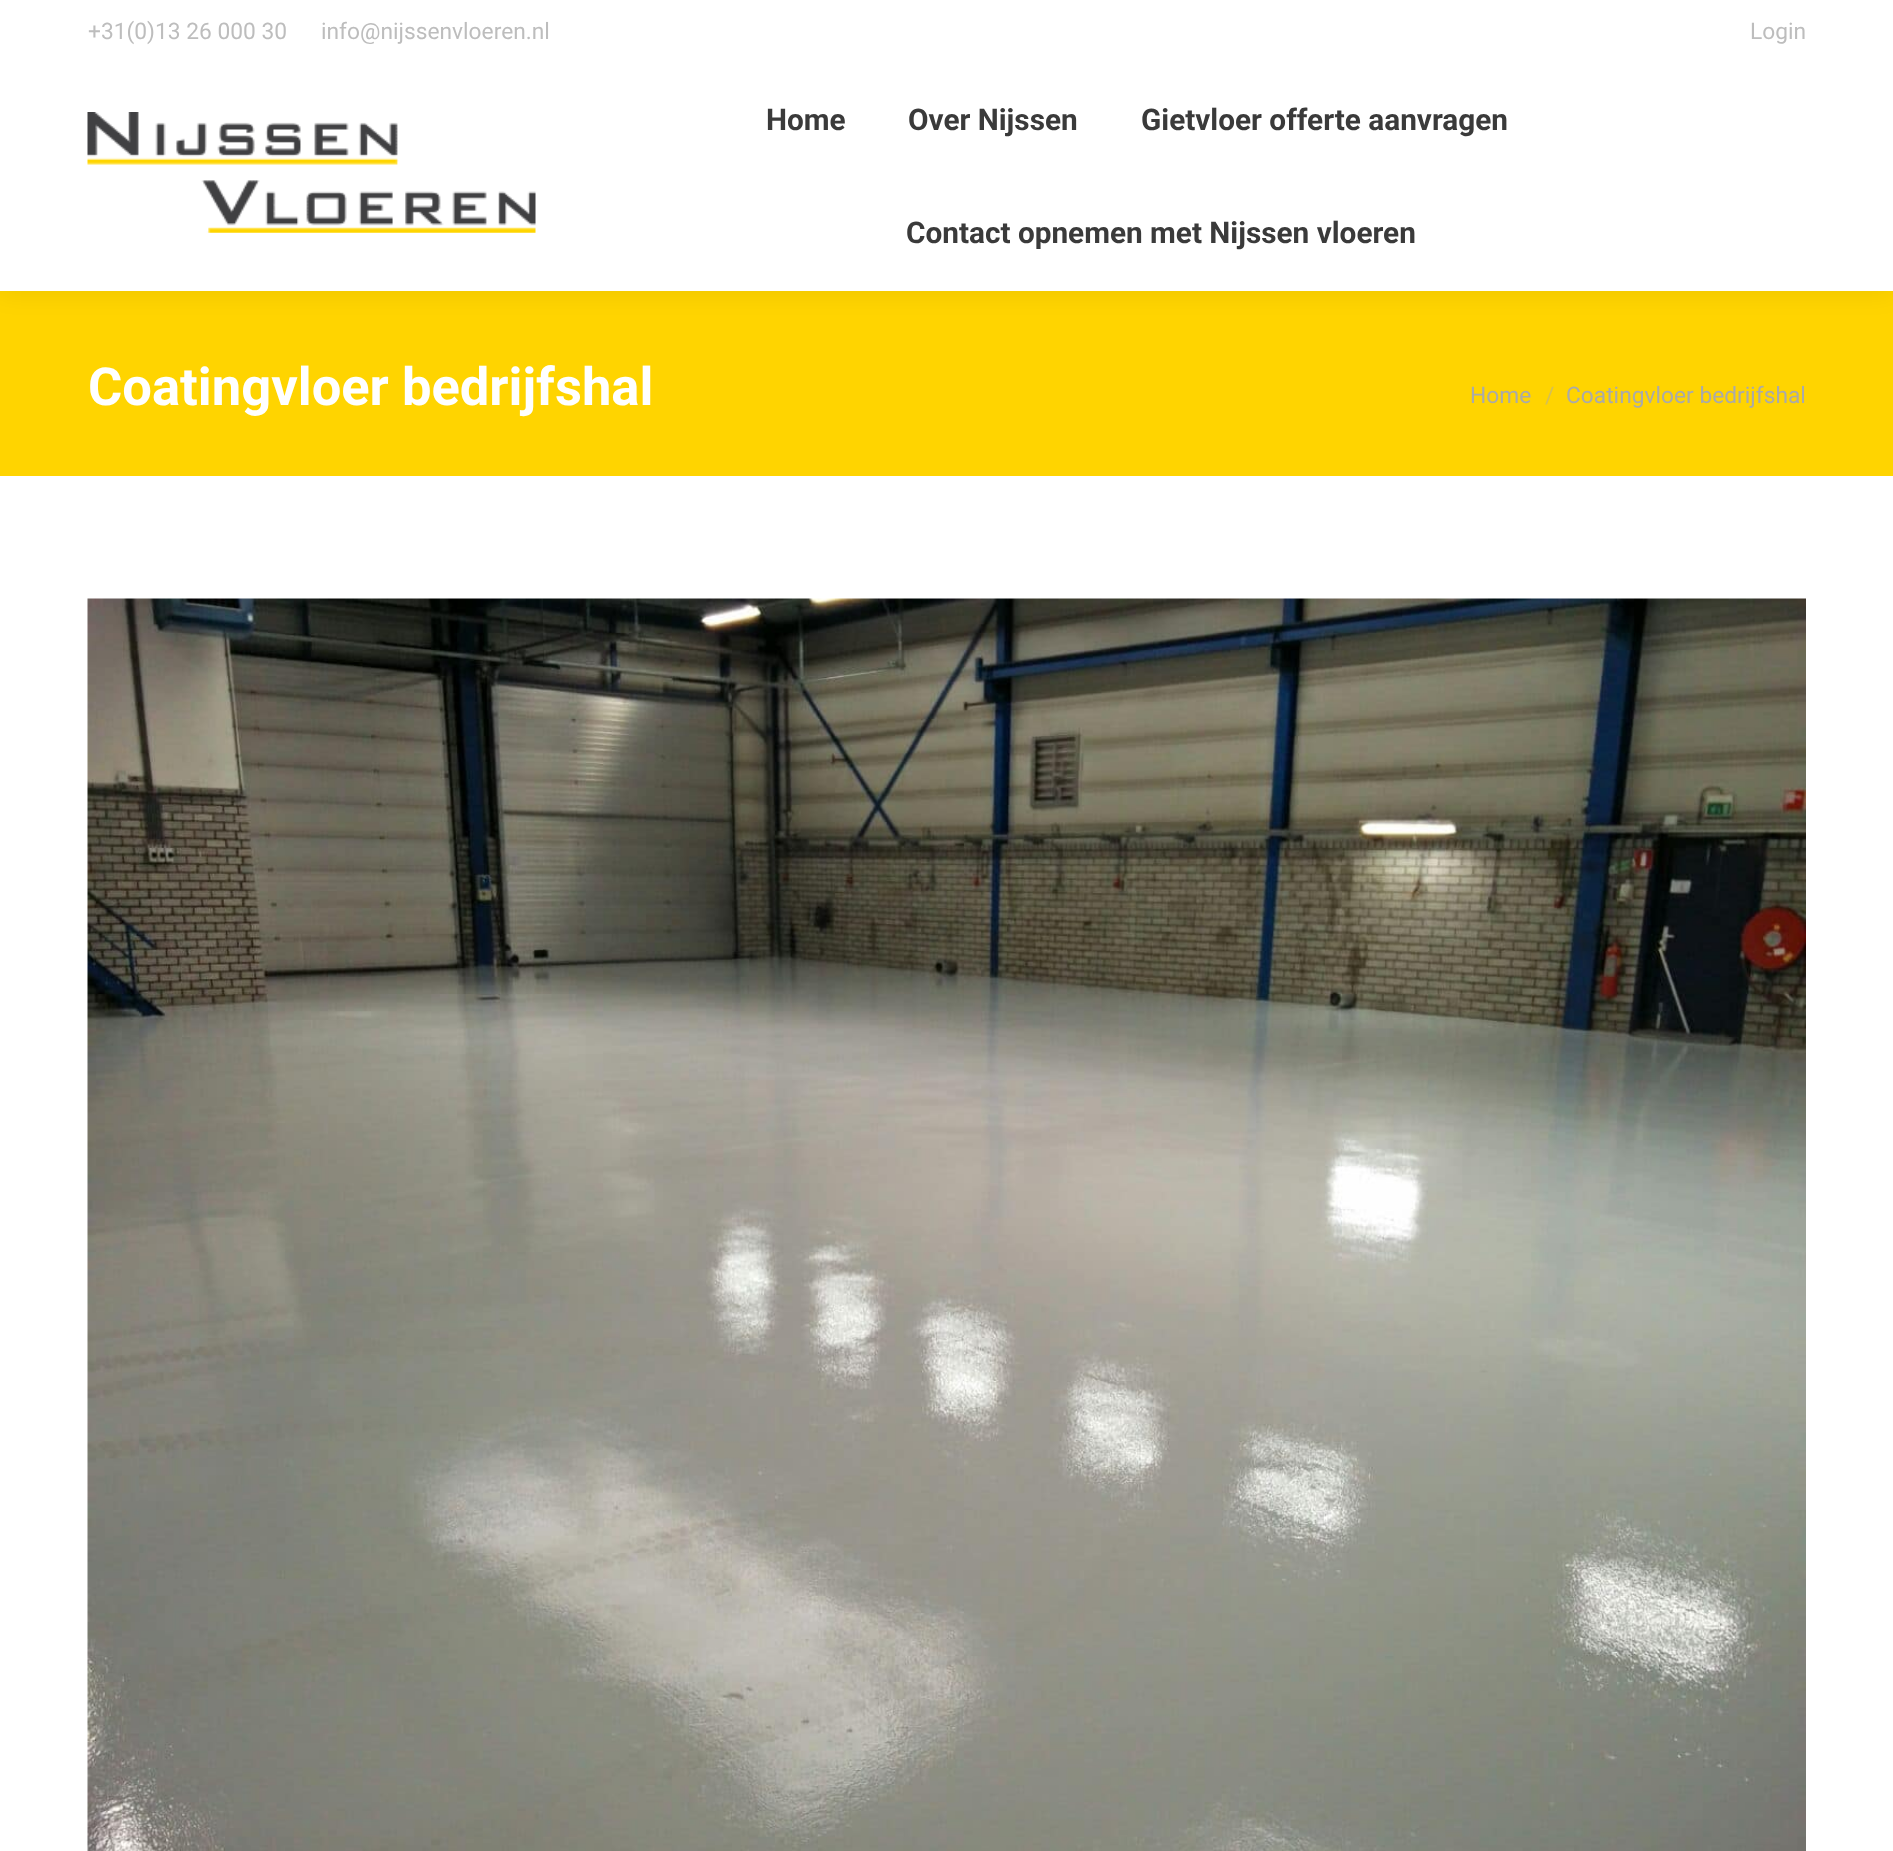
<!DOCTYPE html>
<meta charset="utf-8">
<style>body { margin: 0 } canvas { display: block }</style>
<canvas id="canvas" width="1893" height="1851"></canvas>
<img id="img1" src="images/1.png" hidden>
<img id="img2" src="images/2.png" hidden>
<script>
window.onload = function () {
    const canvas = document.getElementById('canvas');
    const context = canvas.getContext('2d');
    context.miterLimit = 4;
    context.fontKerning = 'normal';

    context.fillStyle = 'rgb(255, 255, 255)';
    context.fillRect(0, 0, 1893, 1851);
    context.fillStyle = 'rgb(255, 212, 0)';
    context.fillRect(0, 291, 1893, 185);
    context.fillStyle = 'rgba(0, 0, 0, 0.07)';
    context.filter = 'blur(13px)';
    context.beginPath();
    context.rect(-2, -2, 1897, 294);
    context.fill();
    context.filter = 'none';
    context.fillStyle = 'rgb(255, 255, 255)';
    context.fillRect(0, 0, 1893, 291);
    context.drawImage(document.getElementById('img1'), 87, 112, 449, 121);
    context.drawImage(document.getElementById('img2'), 87, 598, 1719, 1253);
    context.font = '22.75px Roboto';
    context.fillStyle = 'rgb(189, 189, 189)';
    context.fillText('+31(0)13 26 000 30', 88, 39);
    context.fillText('info@nijssenvloeren.nl', 321, 39);
    context.fillText('Login', 1750, 39);
    context.font = 'bold 29.75px Roboto';
    context.fillStyle = 'rgb(58, 58, 58)';
    context.fillText('Home', 766, 130);
    context.fillText('Over Nijssen', 908, 130);
    context.fillText('Gietvloer offerte aanvragen', 1141, 130);
    context.fillText('Contact opnemen met Nijssen vloeren', 906, 243);
    context.font = 'bold 52.5px Roboto';
    context.fillStyle = 'rgb(255, 255, 255)';
    context.fillText('Coatingvloer bedrijfshal', 88, 405);
    context.font = '22.75px Roboto';
    context.fillStyle = 'rgb(170, 170, 170)';
    context.fillText('Home', 1470, 403);
    context.fillStyle = 'rgb(213, 191, 85)';
    context.fillText('/', 1545, 403);
    context.fillStyle = 'rgb(170, 170, 170)';
    context.fillText('Coatingvloer bedrijfshal', 1566, 403);
};
</script>
